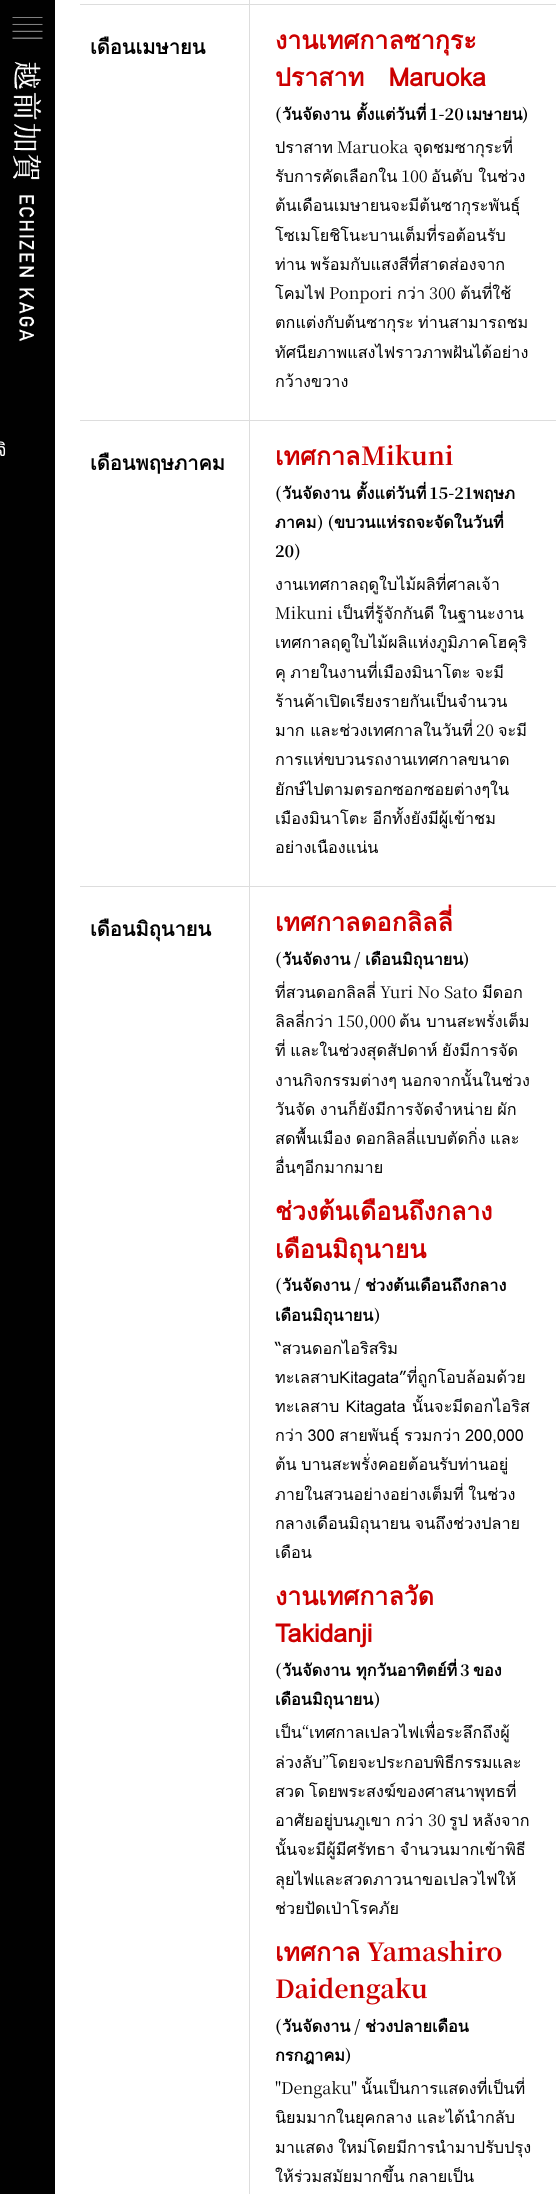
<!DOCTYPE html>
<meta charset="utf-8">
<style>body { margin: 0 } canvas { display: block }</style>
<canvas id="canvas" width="557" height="2194"></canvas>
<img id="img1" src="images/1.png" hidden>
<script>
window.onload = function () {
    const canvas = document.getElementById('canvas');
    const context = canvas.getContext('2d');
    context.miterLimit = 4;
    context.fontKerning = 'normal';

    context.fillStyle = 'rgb(255, 255, 255)';
    context.fillRect(0, 0, 557, 2194);
    context.fillStyle = 'rgb(1, 1, 1)';
    context.fillRect(0, 0, 55, 2194);
    context.drawImage(document.getElementById('img1'), 12, 17, 31, 325);
    context.fillStyle = 'rgb(221, 221, 221)';
    context.fillRect(80, 4, 476, 1);
    context.fillRect(80, 420, 476, 1);
    context.fillRect(80, 886, 476, 1);
    context.fillRect(249, 886, 1, 1308);
    context.fillRect(249, 420, 1, 468);
    context.fillRect(249, 0, 1, 421);
    context.font = '18px Loma';
    context.fillStyle = 'rgb(255, 255, 255)';
    context.fillText('จิ', -4, 456);
    context.font = 'bold 20px Loma';
    context.fillStyle = 'rgb(0, 0, 0)';
    context.fillText('เดือนเมษายน', 90, 54);
    context.font = 'bold 25px Loma';
    context.fillStyle = 'rgb(204, 0, 0)';
    context.fillText('งานเทศกาลซากุระ', 275, 49);
    context.wordSpacing = '16px';
    context.fillText('ปราสาท Maruoka', 275, 86);
    context.wordSpacing = '0px';
    context.font = 'bold 16.25px Noto Serif JP';
    context.fillStyle = 'rgb(0, 0, 0)';
    context.fillText('(', 275, 120);
    context.font = 'bold 16.25px Loma';
    context.fillText('วันจัดงาน ตั้งแต่วันที่', 282, 120);
    context.font = 'bold 16.25px Noto Serif JP';
    context.fillText('1-20', 429, 120);
    context.font = 'bold 16.25px Loma';
    context.fillText('เมษายน', 466, 120);
    context.font = 'bold 16.25px Noto Serif JP';
    context.fillText(')', 522, 120);
    context.font = '16.25px Loma';
    context.fillText('ปราสาท', 275, 153);
    context.font = '16.25px Noto Serif JP';
    context.fillText('Maruoka', 337, 153);
    context.font = '16.25px Loma';
    context.fillText('จุดชมซากุระที่', 413, 153);
    context.fillText('รับการคัดเลือกใน', 275, 182);
    context.font = '16.25px Noto Serif JP';
    context.fillText('100', 401, 182);
    context.font = '16.25px Loma';
    context.fillText('อันดับ ในช่วง', 431, 182);
    context.fillText('ต้นเดือนเมษายนจะมีต้นซากุระพันธุ์', 275, 211);
    context.fillText('โซเมโยชิโนะบานเต็มที่รอต้อนรับ', 275, 241);
    context.wordSpacing = '-1px';
    context.fillText('ท่าน พร้อมกับแสงสีที่สาดส่องจาก', 275, 270);
    context.wordSpacing = '0px';
    context.fillText('โคมไฟ', 275, 299);
    context.font = '16.25px Noto Serif JP';
    context.fillText('Ponpori', 329, 299);
    context.font = '16.25px Loma';
    context.fillText('กว่า', 397, 299);
    context.font = '16.25px Noto Serif JP';
    context.fillText('300', 429, 299);
    context.font = '16.25px Loma';
    context.fillText('ต้นที่ใช้', 460, 299);
    context.wordSpacing = '-1px';
    context.fillText('ตกแต่งกับต้นซากุระ ท่านสามารถชม', 275, 328);
    context.wordSpacing = '0px';
    context.fillText('ทัศนียภาพแสงไฟราวภาพฝันได้อย่าง', 275, 358);
    context.fillText('กว้างขวาง', 275, 387);
    context.font = 'bold 20px Loma';
    context.fillText('เดือนพฤษภาคม', 90, 470);
    context.font = 'bold 25px Loma';
    context.fillStyle = 'rgb(204, 0, 0)';
    context.fillText('เทศกาล', 275, 465);
    context.font = 'bold 25px Noto Serif JP';
    context.fillText('Mikuni', 361, 465);
    context.font = 'bold 16.25px Noto Serif JP';
    context.fillStyle = 'rgb(0, 0, 0)';
    context.fillText('(', 275, 499);
    context.font = 'bold 16.25px Loma';
    context.fillText('วันจัดงาน ตั้งแต่วันที่', 282, 499);
    context.font = 'bold 16.25px Noto Serif JP';
    context.fillText('15-21', 429, 499);
    context.font = 'bold 16.25px Loma';
    context.fillText('พฤษภ', 473, 499);
    context.fillText('ภาคม', 275, 528);
    context.font = 'bold 16.25px Noto Serif JP';
    context.fillText(') (', 317, 528);
    context.font = 'bold 16.25px Loma';
    context.fillText('ขบวนแห่รถจะจัดในวันที่', 334, 528);
    context.font = 'bold 16.25px Noto Serif JP';
    context.fillText('20)', 275, 557);
    context.font = '16.25px Loma';
    context.fillText('งานเทศกาลฤดูใบไม้ผลิที่ศาลเจ้า', 275, 590);
    context.font = '16.25px Noto Serif JP';
    context.fillText('Mikuni', 275, 619);
    context.wordSpacing = '-1px';
    context.font = '16.25px Loma';
    context.fillText('เป็นที่รู้จักกันดี ในฐานะงาน', 337, 619);
    context.wordSpacing = '0px';
    context.fillText('เทศกาลฤดูใบไม้ผลิแห่งภูมิภาคโฮคุริ', 275, 648);
    context.wordSpacing = '-1px';
    context.fillText('คุ ภายในงานที่เมืองมินาโตะ จะมี', 275, 678);
    context.wordSpacing = '0px';
    context.fillText('ร้านค้าเปิดเรียงรายกันเป็นจำนวน', 275, 707);
    context.fillText('มาก และช่วงเทศกาลในวันที่', 275, 736);
    context.font = '16.25px Noto Serif JP';
    context.fillText('20', 476, 736);
    context.font = '16.25px Loma';
    context.fillText('จะมี', 498, 736);
    context.fillText('การแห่ขบวนรถงานเทศกาลขนาด', 275, 765);
    context.fillText('ยักษ์ไปตามตรอกซอกซอยต่างๆใน', 275, 795);
    context.wordSpacing = '-1px';
    context.fillText('เมืองมินาโตะ อีกทั้งยังมีผู้เข้าชม', 275, 824);
    context.wordSpacing = '0px';
    context.fillText('อย่างเนืองแน่น', 275, 853);
    context.font = 'bold 20px Loma';
    context.fillText('เดือนมิถุนายน', 90, 936);
    context.font = 'bold 25px Loma';
    context.fillStyle = 'rgb(204, 0, 0)';
    context.fillText('เทศกาลดอกลิลลี่', 275, 931);
    context.font = 'bold 16.25px Noto Serif JP';
    context.fillStyle = 'rgb(0, 0, 0)';
    context.fillText('(', 275, 965);
    context.font = 'bold 16.25px Loma';
    context.fillText('เดือนมิถุนายน', 365, 965);
    context.font = 'bold 16.25px Noto Serif JP';
    context.fillText(')', 463, 965);
    context.font = 'bold 16.25px Loma';
    context.fillText('วันจัดงาน', 282, 965);
    context.font = 'bold 16.25px Noto Serif JP';
    context.fillText('/', 354, 965);
    context.font = '16.25px Loma';
    context.fillText('ที่สวนดอกลิลลี่', 275, 998);
    context.font = '16.25px Noto Serif JP';
    context.fillText('Yuri No Sato', 380, 998);
    context.font = '16.25px Loma';
    context.fillText('มีดอก', 482, 998);
    context.fillText('ลิลลี่กว่า', 275, 1027);
    context.font = '16.25px Noto Serif JP';
    context.fillText('150,000', 337, 1027);
    context.font = '16.25px Loma';
    context.fillText('ต้น บานสะพรั่งเต็ม', 399, 1027);
    context.wordSpacing = '-1px';
    context.fillText('ที่ และในช่วงสุดสัปดาห์ ยังมีการจัด', 275, 1056);
    context.fillText('งานกิจกรรมต่างๆ นอกจากนั้นในช่วง', 275, 1086);
    context.fillText('วันจัด งานก็ยังมีการจัดจำหน่าย ผัก', 275, 1115);
    context.fillText('สดพื้นเมือง ดอกลิลลี่แบบตัดกิ่ง และ', 275, 1144);
    context.wordSpacing = '0px';
    context.fillText('อื่นๆอีกมากมาย', 275, 1173);
    context.font = 'bold 25px Loma';
    context.fillStyle = 'rgb(204, 0, 0)';
    context.fillText('ช่วงต้นเดือนถึงกลาง', 275, 1220);
    context.fillText('เดือนมิถุนายน', 275, 1258);
    context.font = 'bold 16.25px Noto Serif JP';
    context.fillStyle = 'rgb(0, 0, 0)';
    context.fillText('(', 275, 1291);
    context.font = 'bold 16.25px Loma';
    context.fillText('ช่วงต้นเดือนถึงกลาง', 365, 1291);
    context.fillText('วันจัดงาน', 282, 1291);
    context.font = 'bold 16.25px Noto Serif JP';
    context.fillText('/', 354, 1291);
    context.font = 'bold 16.25px Loma';
    context.fillText('เดือนมิถุนายน', 275, 1321);
    context.font = 'bold 16.25px Noto Serif JP';
    context.fillText(')', 374, 1321);
    context.font = '16.25px Loma';
    context.fillText('“สวนดอกไอริสริม', 275, 1354);
    context.fillText('ทะเลสาบKitagata”ที่ถูกโอบล้อมด้วย', 275, 1383);
    context.wordSpacing = '1px';
    context.fillText('ทะเลสาบ Kitagata นั้นจะมีดอกไอริส', 275, 1412);
    context.wordSpacing = '-1px';
    context.fillText('กว่า 300 สายพันธุ์ รวมกว่า 200,000', 275, 1441);
    context.fillText('ต้น บานสะพรั่งคอยต้อน', 275, 1470);
    context.wordSpacing = '0px';
    context.fillText('รับท่านอยู่', 439, 1470);
    context.wordSpacing = '-1px';
    context.fillText('ภายในสวนอย่างอย่างเต็มที่ ในช่วง', 275, 1500);
    context.fillText('กลางเดือนมิถุนายน จนถึงช่วงปลาย', 275, 1529);
    context.wordSpacing = '0px';
    context.fillText('เดือน', 275, 1558);
    context.font = 'bold 25px Loma';
    context.fillStyle = 'rgb(204, 0, 0)';
    context.fillText('งานเทศกาลวัด', 275, 1605);
    context.fillText('Takidanji', 275, 1642);
    context.font = 'bold 16.25px Noto Serif JP';
    context.fillStyle = 'rgb(0, 0, 0)';
    context.fillText('(', 275, 1676);
    context.font = 'bold 16.25px Loma';
    context.fillText('วันจัดงาน ทุกวันอาทิตย์ที่', 282, 1676);
    context.font = 'bold 16.25px Noto Serif JP';
    context.fillText('3', 460, 1676);
    context.font = 'bold 16.25px Loma';
    context.fillText('ของ', 473, 1676);
    context.fillText('เดือนมิถุนายน', 275, 1705);
    context.font = 'bold 16.25px Noto Serif JP';
    context.fillText(')', 374, 1705);
    context.font = '16.25px Loma';
    context.fillText('เป็น', 275, 1738);
    context.font = '16.25px Noto Serif JP';
    context.fillText('“', 302, 1738);
    context.font = '16.25px Loma';
    context.fillText('เทศกาลเปลวไฟเพื่อระลึกถึงผู้', 309, 1738);
    context.fillText('ล่วงลับ', 275, 1768);
    context.font = '16.25px Noto Serif JP';
    context.fillText('”', 322, 1768);
    context.font = '16.25px Loma';
    context.fillText('โดยจะประกอบพิธีกรรมและ', 329, 1768);
    context.wordSpacing = '-1px';
    context.fillText('สวด โดยพระสงฆ์ของศาสนาพุทธที่', 275, 1797);
    context.fillText('อาศัยอยู่บนภูเขา กว่า', 275, 1826);
    context.wordSpacing = '0px';
    context.font = '16.25px Noto Serif JP';
    context.fillText('30', 428, 1826);
    context.wordSpacing = '-1px';
    context.font = '16.25px Loma';
    context.fillText('รูป หลังจาก', 449, 1826);
    context.fillText('นั้นจะมีผู้มีศรัทธา จำนวนมากเข้าพิธี', 275, 1855);
    context.wordSpacing = '0px';
    context.fillText('ลุยไฟและสวดภาวนาขอเปลวไฟให้', 275, 1885);
    context.fillText('ช่วยปัดเป่าโรคภัย', 275, 1914);
    context.font = 'bold 25px Loma';
    context.fillStyle = 'rgb(204, 0, 0)';
    context.fillText('เทศกาล', 275, 1961);
    context.font = 'bold 25px Noto Serif JP';
    context.fillText('Yamashiro', 367, 1961);
    context.fillText('Daidengaku', 275, 1998);
    context.font = 'bold 16.25px Noto Serif JP';
    context.fillStyle = 'rgb(0, 0, 0)';
    context.fillText('(', 275, 2032);
    context.font = 'bold 16.25px Loma';
    context.fillText('ช่วงปลายเดือน', 365, 2032);
    context.fillText('วันจัดงาน', 282, 2032);
    context.font = 'bold 16.25px Noto Serif JP';
    context.fillText('/', 354, 2032);
    context.font = 'bold 16.25px Loma';
    context.fillText('กรกฎาคม', 275, 2061);
    context.font = 'bold 16.25px Noto Serif JP';
    context.fillText(')', 345, 2061);
    context.font = '16.25px Noto Serif JP';
    context.fillText('"Dengaku"', 275, 2094);
    context.font = '16.25px Loma';
    context.fillText('นั้นเป็นการแสดงที่เป็นที่', 361, 2094);
    context.wordSpacing = '-1px';
    context.fillText('นิยมมากในยุคกลาง และได้นำกลับ', 275, 2123);
    context.fillText('มาแสดง ใหม่โดยมีการนำมาปรับปรุง', 275, 2153);
    context.fillText('ให้ร่วมสมัยมากขึ้น กลายเป็น', 275, 2182);
};
</script>
